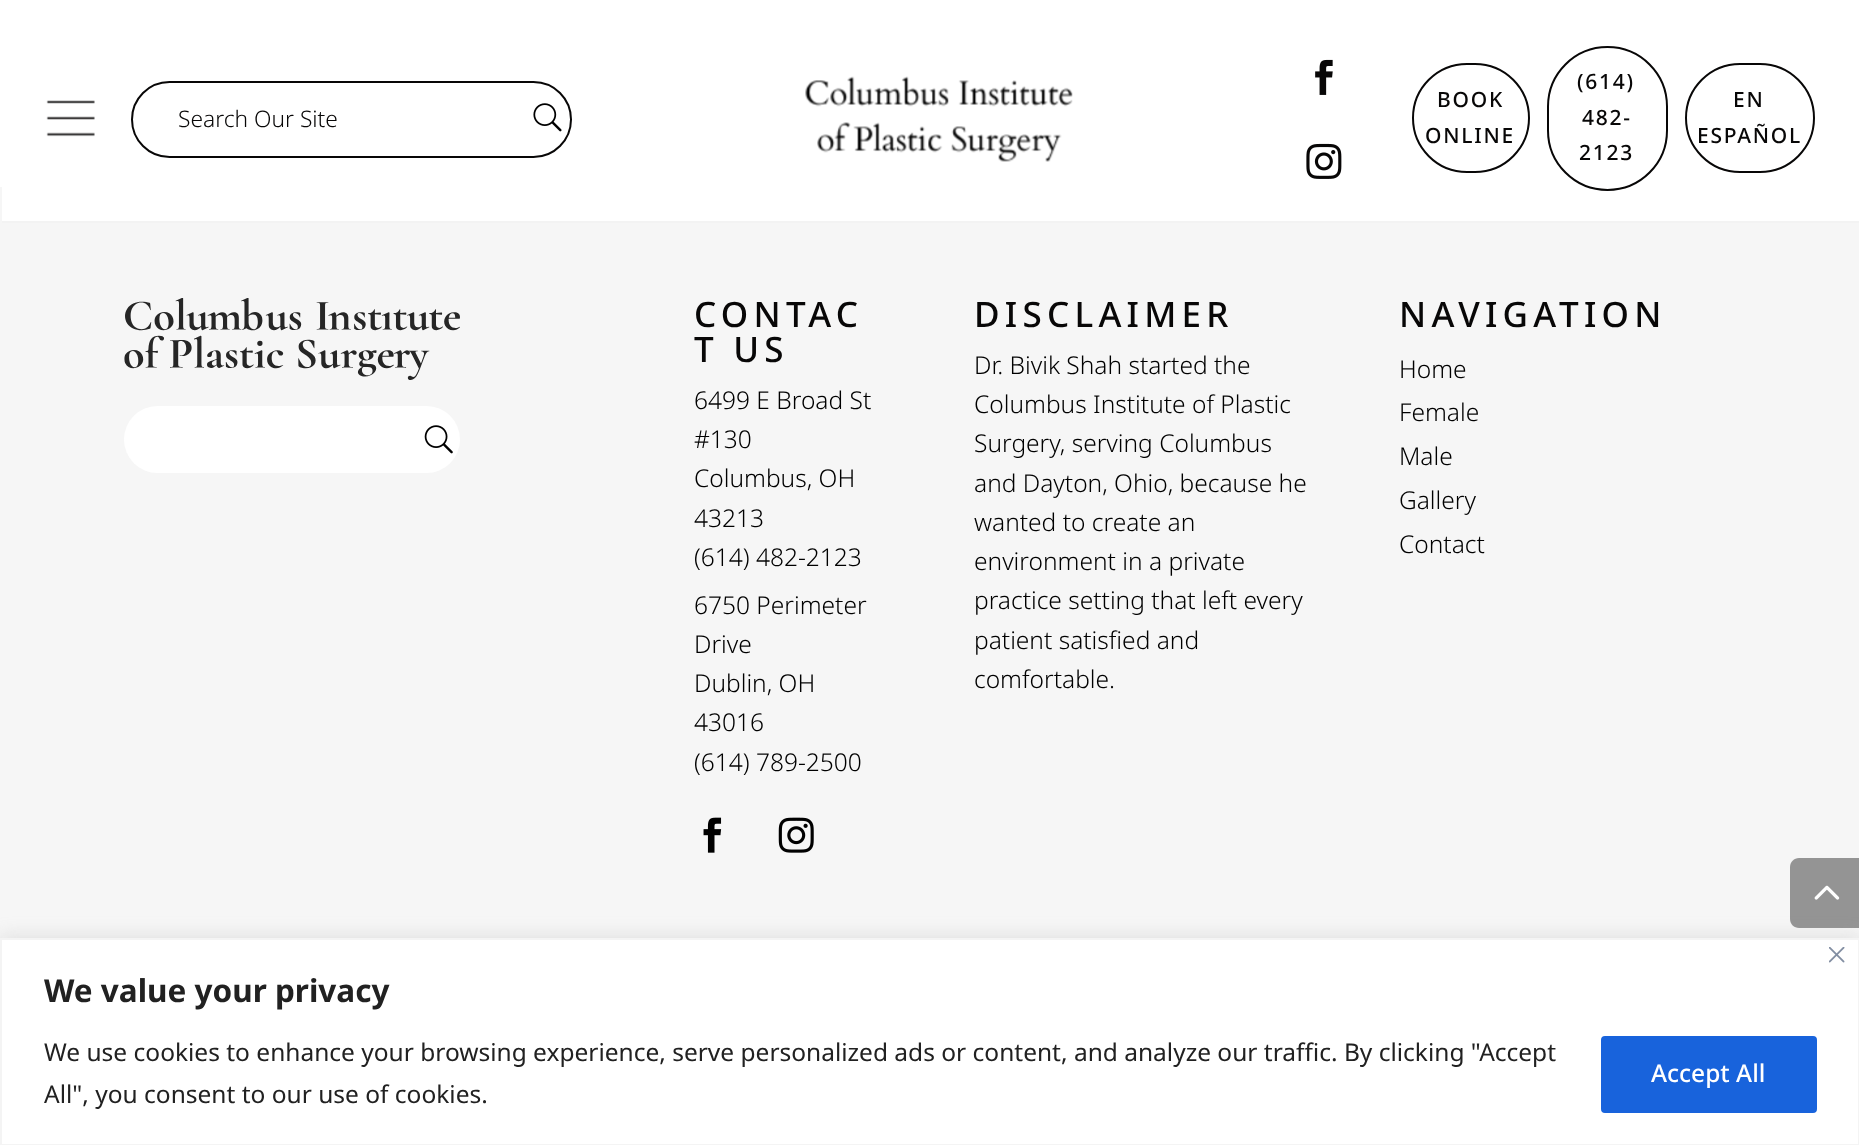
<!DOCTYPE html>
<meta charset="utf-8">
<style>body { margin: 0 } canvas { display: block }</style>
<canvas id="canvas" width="1859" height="1145"></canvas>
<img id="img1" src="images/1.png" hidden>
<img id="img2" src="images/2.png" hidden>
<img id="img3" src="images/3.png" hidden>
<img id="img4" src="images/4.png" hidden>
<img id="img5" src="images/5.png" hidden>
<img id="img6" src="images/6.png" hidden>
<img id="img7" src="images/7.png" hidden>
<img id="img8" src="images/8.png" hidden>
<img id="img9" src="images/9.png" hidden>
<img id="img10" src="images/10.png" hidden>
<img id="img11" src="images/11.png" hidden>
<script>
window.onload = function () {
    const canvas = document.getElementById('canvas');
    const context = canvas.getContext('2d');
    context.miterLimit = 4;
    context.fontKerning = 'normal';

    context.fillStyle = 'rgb(255, 255, 255)';
    context.fillRect(0, 0, 1859, 1145);
    context.fillStyle = 'rgb(246, 246, 246)';
    context.fillRect(0, 187, 1859, 751);
    context.fillStyle = 'rgb(255, 255, 255)';
    context.fillRect(2, 187, 1857, 34);
    context.fillStyle = 'rgb(243, 243, 243)';
    context.fillRect(2, 221, 1857, 2);
    context.drawImage(document.getElementById('img1'), 46, 100, 49, 37);
    context.beginPath();
    context.roundRect(132, 82, 439, 75, 37.5);
    context.strokeStyle = 'rgb(8, 7, 7)';
    context.lineWidth = 2;
    context.stroke();
    context.drawImage(document.getElementById('img2'), 533, 103, 29, 29);
    context.drawImage(document.getElementById('img3'), 805, 76, 268, 86);
    context.drawImage(document.getElementById('img4'), 1315, 59, 18, 36);
    context.drawImage(document.getElementById('img5'), 1306, 143, 36, 36);
    context.beginPath();
    context.roundRect(1413, 64, 116, 108, 54);
    context.stroke();
    context.beginPath();
    context.roundRect(1548, 47, 119, 143, 59.5);
    context.stroke();
    context.beginPath();
    context.roundRect(1686, 64, 128, 108, 54);
    context.stroke();
    context.drawImage(document.getElementById('img6'), 124, 298, 336, 82);
    context.fillStyle = 'rgb(255, 255, 255)';
    context.beginPath();
    context.roundRect(124, 406, 336, 67, 33.5);
    context.fill();
    context.drawImage(document.getElementById('img7'), 424, 425, 29, 29);
    context.drawImage(document.getElementById('img8'), 703, 817, 19, 36);
    context.drawImage(document.getElementById('img9'), 778, 817, 36, 36);
    context.fillStyle = 'rgb(148, 148, 148)';
    context.beginPath();
    context.moveTo(1799, 858);
    context.lineTo(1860, 858);
    context.lineTo(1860, 928);
    context.lineTo(1799, 928);
    context.bezierCurveTo(1794, 928, 1790, 924, 1790, 919);
    context.lineTo(1790, 867);
    context.bezierCurveTo(1790, 862, 1794, 858, 1799, 858);
    context.closePath();
    context.fill();
    context.drawImage(document.getElementById('img10'), 1814, 885, 26, 15);
    context.fillStyle = 'rgba(172, 171, 171, 0.3)';
    context.filter = 'blur(9px)';
    context.beginPath();
    context.rect(0, 936, 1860, 209);
    context.fill();
    context.filter = 'none';
    context.fillStyle = 'rgb(255, 255, 255)';
    context.beginPath();
    context.rect(1, 939, 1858, 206);
    context.fill();
    context.strokeStyle = 'rgb(244, 244, 244)';
    context.stroke();
    context.drawImage(document.getElementById('img11'), 1829, 947, 16, 16);
    context.fillStyle = 'rgb(24, 99, 220)';
    context.beginPath();
    context.roundRect(1603, 1038, 212, 73, 2);
    context.fill();
    context.strokeStyle = 'rgb(24, 99, 220)';
    context.lineWidth = 4;
    context.stroke();
    context.font = '300 22.75px Noto Sans';
    context.fillStyle = 'rgb(8, 7, 7)';
    context.fillText('Search Our Site', 178, 127);
    context.letterSpacing = '1.75px';
    context.font = '500 21px Noto Sans';
    context.fillText('BOOK', 1437, 107);
    context.fillText('ONLINE', 1425, 143);
    context.fillText('(614)', 1577, 89);
    context.fillText('482-', 1582, 125);
    context.fillText('2123', 1579, 160);
    context.fillText('EN', 1733, 107);
    context.fillText('ESPAÑOL', 1697, 143);
    context.letterSpacing = '5.25px';
    context.font = '500 35px Noto Sans';
    context.fillText('CONTAC', 694, 327);
    context.fillText('T US', 694, 362);
    context.letterSpacing = '0px';
    context.font = '300 24.5px Noto Sans';
    context.fillStyle = 'rgb(0, 0, 0)';
    context.fillText('6499 E Broad St', 694, 409);
    context.fillText('#130', 694, 448);
    context.fillText('Columbus, OH', 694, 487);
    context.fillText('43213', 694, 527);
    context.fillText('(614) 482-2123', 694, 566);
    context.fillText('6750 Perimeter', 694, 614);
    context.fillText('Drive', 694, 653);
    context.fillText('Dublin, OH', 694, 692);
    context.fillText('43016', 694, 731);
    context.fillText('(614) 789-2500', 694, 771);
    context.letterSpacing = '5.25px';
    context.font = '500 35px Noto Sans';
    context.fillStyle = 'rgb(8, 7, 7)';
    context.fillText('DISCLAIMER', 974, 327);
    context.letterSpacing = '0px';
    context.font = '300 24.5px Noto Sans';
    context.fillStyle = 'rgb(0, 0, 0)';
    context.fillText('Dr. Bivik Shah started the', 974, 374);
    context.fillText('Columbus Institute of Plastic', 974, 413);
    context.fillText('Surgery, serving Columbus', 974, 452);
    context.fillText('and Dayton, Ohio, because he', 974, 492);
    context.fillText('wanted to create an', 974, 531);
    context.fillText('environment in a private', 974, 570);
    context.fillText('practice setting that left every', 974, 609);
    context.fillText('patient satisfied and', 974, 649);
    context.fillText('comfortable.', 974, 688);
    context.letterSpacing = '5.25px';
    context.font = '500 35px Noto Sans';
    context.fillStyle = 'rgb(8, 7, 7)';
    context.fillText('NAVIGATION', 1399, 327);
    context.letterSpacing = '0px';
    context.font = '300 24.5px Noto Sans';
    context.fillStyle = 'rgb(0, 0, 0)';
    context.fillText('Home', 1399, 378);
    context.fillText('Female', 1399, 421);
    context.fillText('Male', 1399, 465);
    context.fillText('Gallery', 1399, 509);
    context.fillText('Contact', 1399, 553);
    context.font = 'bold 31.5px Noto Sans';
    context.fillStyle = 'rgb(33, 33, 33)';
    context.fillText('We value your privacy', 44, 1002);
    context.font = '24.5px Noto Sans';
    context.fillText('We use cookies to enhance your browsing experience, serve personalized ads or content, and analyze our traffic. By clicking "Accept', 44, 1061);
    context.fillText('All", you consent to our use of cookies.', 44, 1103);
    context.font = '500 24.5px Noto Sans';
    context.fillStyle = 'rgb(255, 255, 255)';
    context.fillText('Accept All', 1651, 1082);
};
</script>
